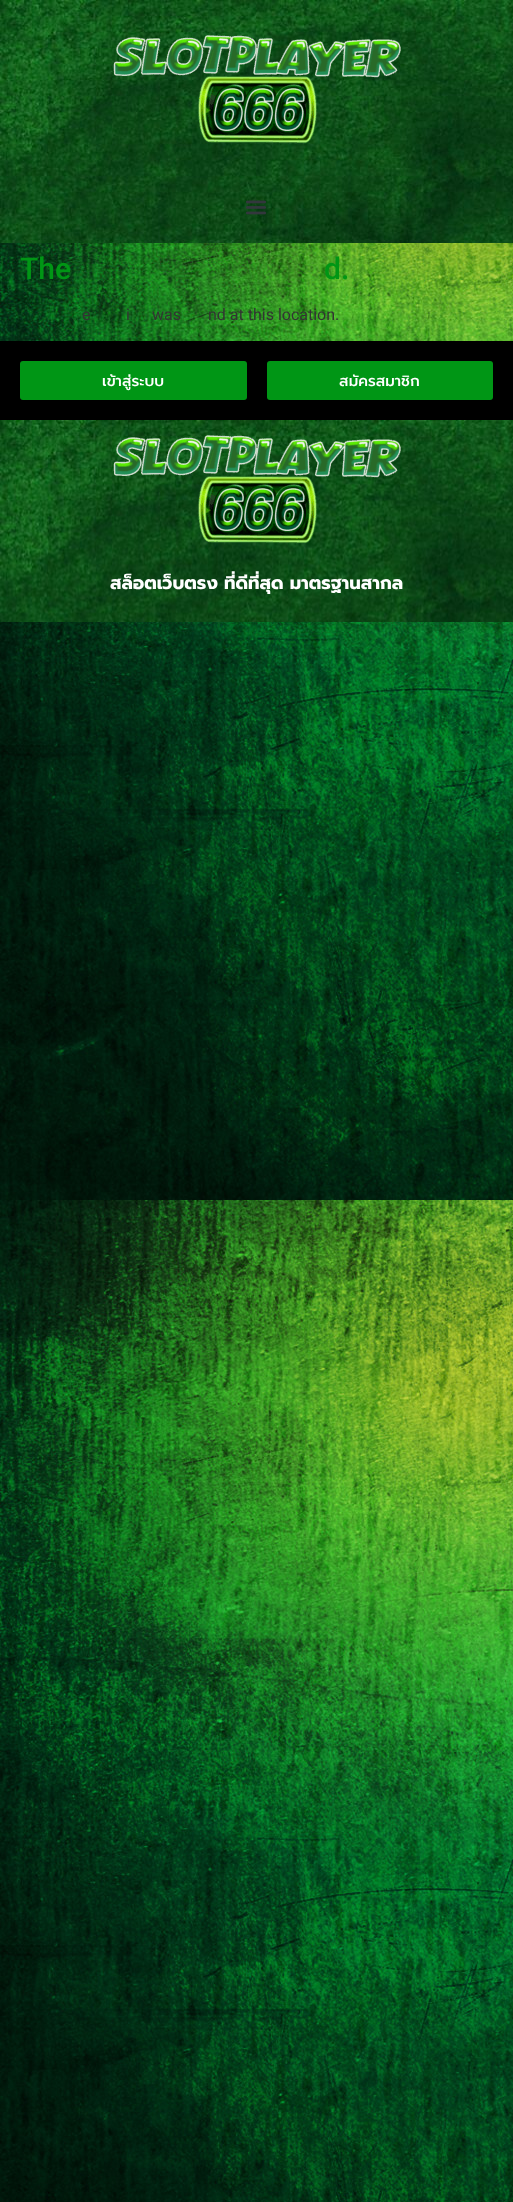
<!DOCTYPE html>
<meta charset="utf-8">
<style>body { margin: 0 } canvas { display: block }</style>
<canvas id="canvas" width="513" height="2202"></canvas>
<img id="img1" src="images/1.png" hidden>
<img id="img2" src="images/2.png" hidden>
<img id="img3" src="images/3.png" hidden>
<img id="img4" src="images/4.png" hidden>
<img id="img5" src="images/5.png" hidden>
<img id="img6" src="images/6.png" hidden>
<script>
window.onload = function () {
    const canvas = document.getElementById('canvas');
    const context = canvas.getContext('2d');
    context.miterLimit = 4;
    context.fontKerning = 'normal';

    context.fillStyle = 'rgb(255, 255, 255)';
    context.fillRect(0, 0, 513, 2202);
    context.drawImage(document.getElementById('img1'), 0, 243, 513, 1959);
    context.drawImage(document.getElementById('img2'), 0, 0, 513, 243);
    context.drawImage(document.getElementById('img3'), 113, 35, 288, 109);
    context.fillStyle = 'rgba(0, 0, 0, 0.05)';
    context.fillRect(240, 190, 33, 33);
    context.drawImage(document.getElementById('img4'), 246, 200, 20, 15);
    context.fillStyle = 'rgb(0, 0, 0)';
    context.fillRect(0, 341, 513, 79);
    context.fillStyle = 'rgb(0, 150, 21)';
    context.beginPath();
    context.roundRect(20, 361, 227, 39, 3);
    context.fill();
    context.beginPath();
    context.roundRect(267, 361, 226, 39, 3);
    context.fill();
    context.drawImage(document.getElementById('img5'), 0, 420, 513, 202);
    context.drawImage(document.getElementById('img6'), 113, 435, 288, 109);
    context.font = '500 30px Roboto';
    context.fillText('The', 20, 279);
    context.fillText('d.', 324, 279);
    context.font = '16px Roboto';
    context.fillStyle = 'rgb(51, 51, 51)';
    context.fillText('e', 82, 320);
    context.fillText('i', 126, 320);
    context.fillText('was', 152, 320);
    context.fillText('nd at this location.', 208, 320);
    context.font = '500 15px Prompt';
    context.fillStyle = 'rgb(255, 255, 255)';
    context.fillText('เข้าสู่ระบบ', 102, 386);
    context.fillText('สมัครสมาชิก', 339, 386);
    context.font = 'bold 18px Prompt';
    context.fillText('สล็อตเว็บตรง ที่ดีที่สุด มาตรฐานสากล', 110, 589);
};
</script>
